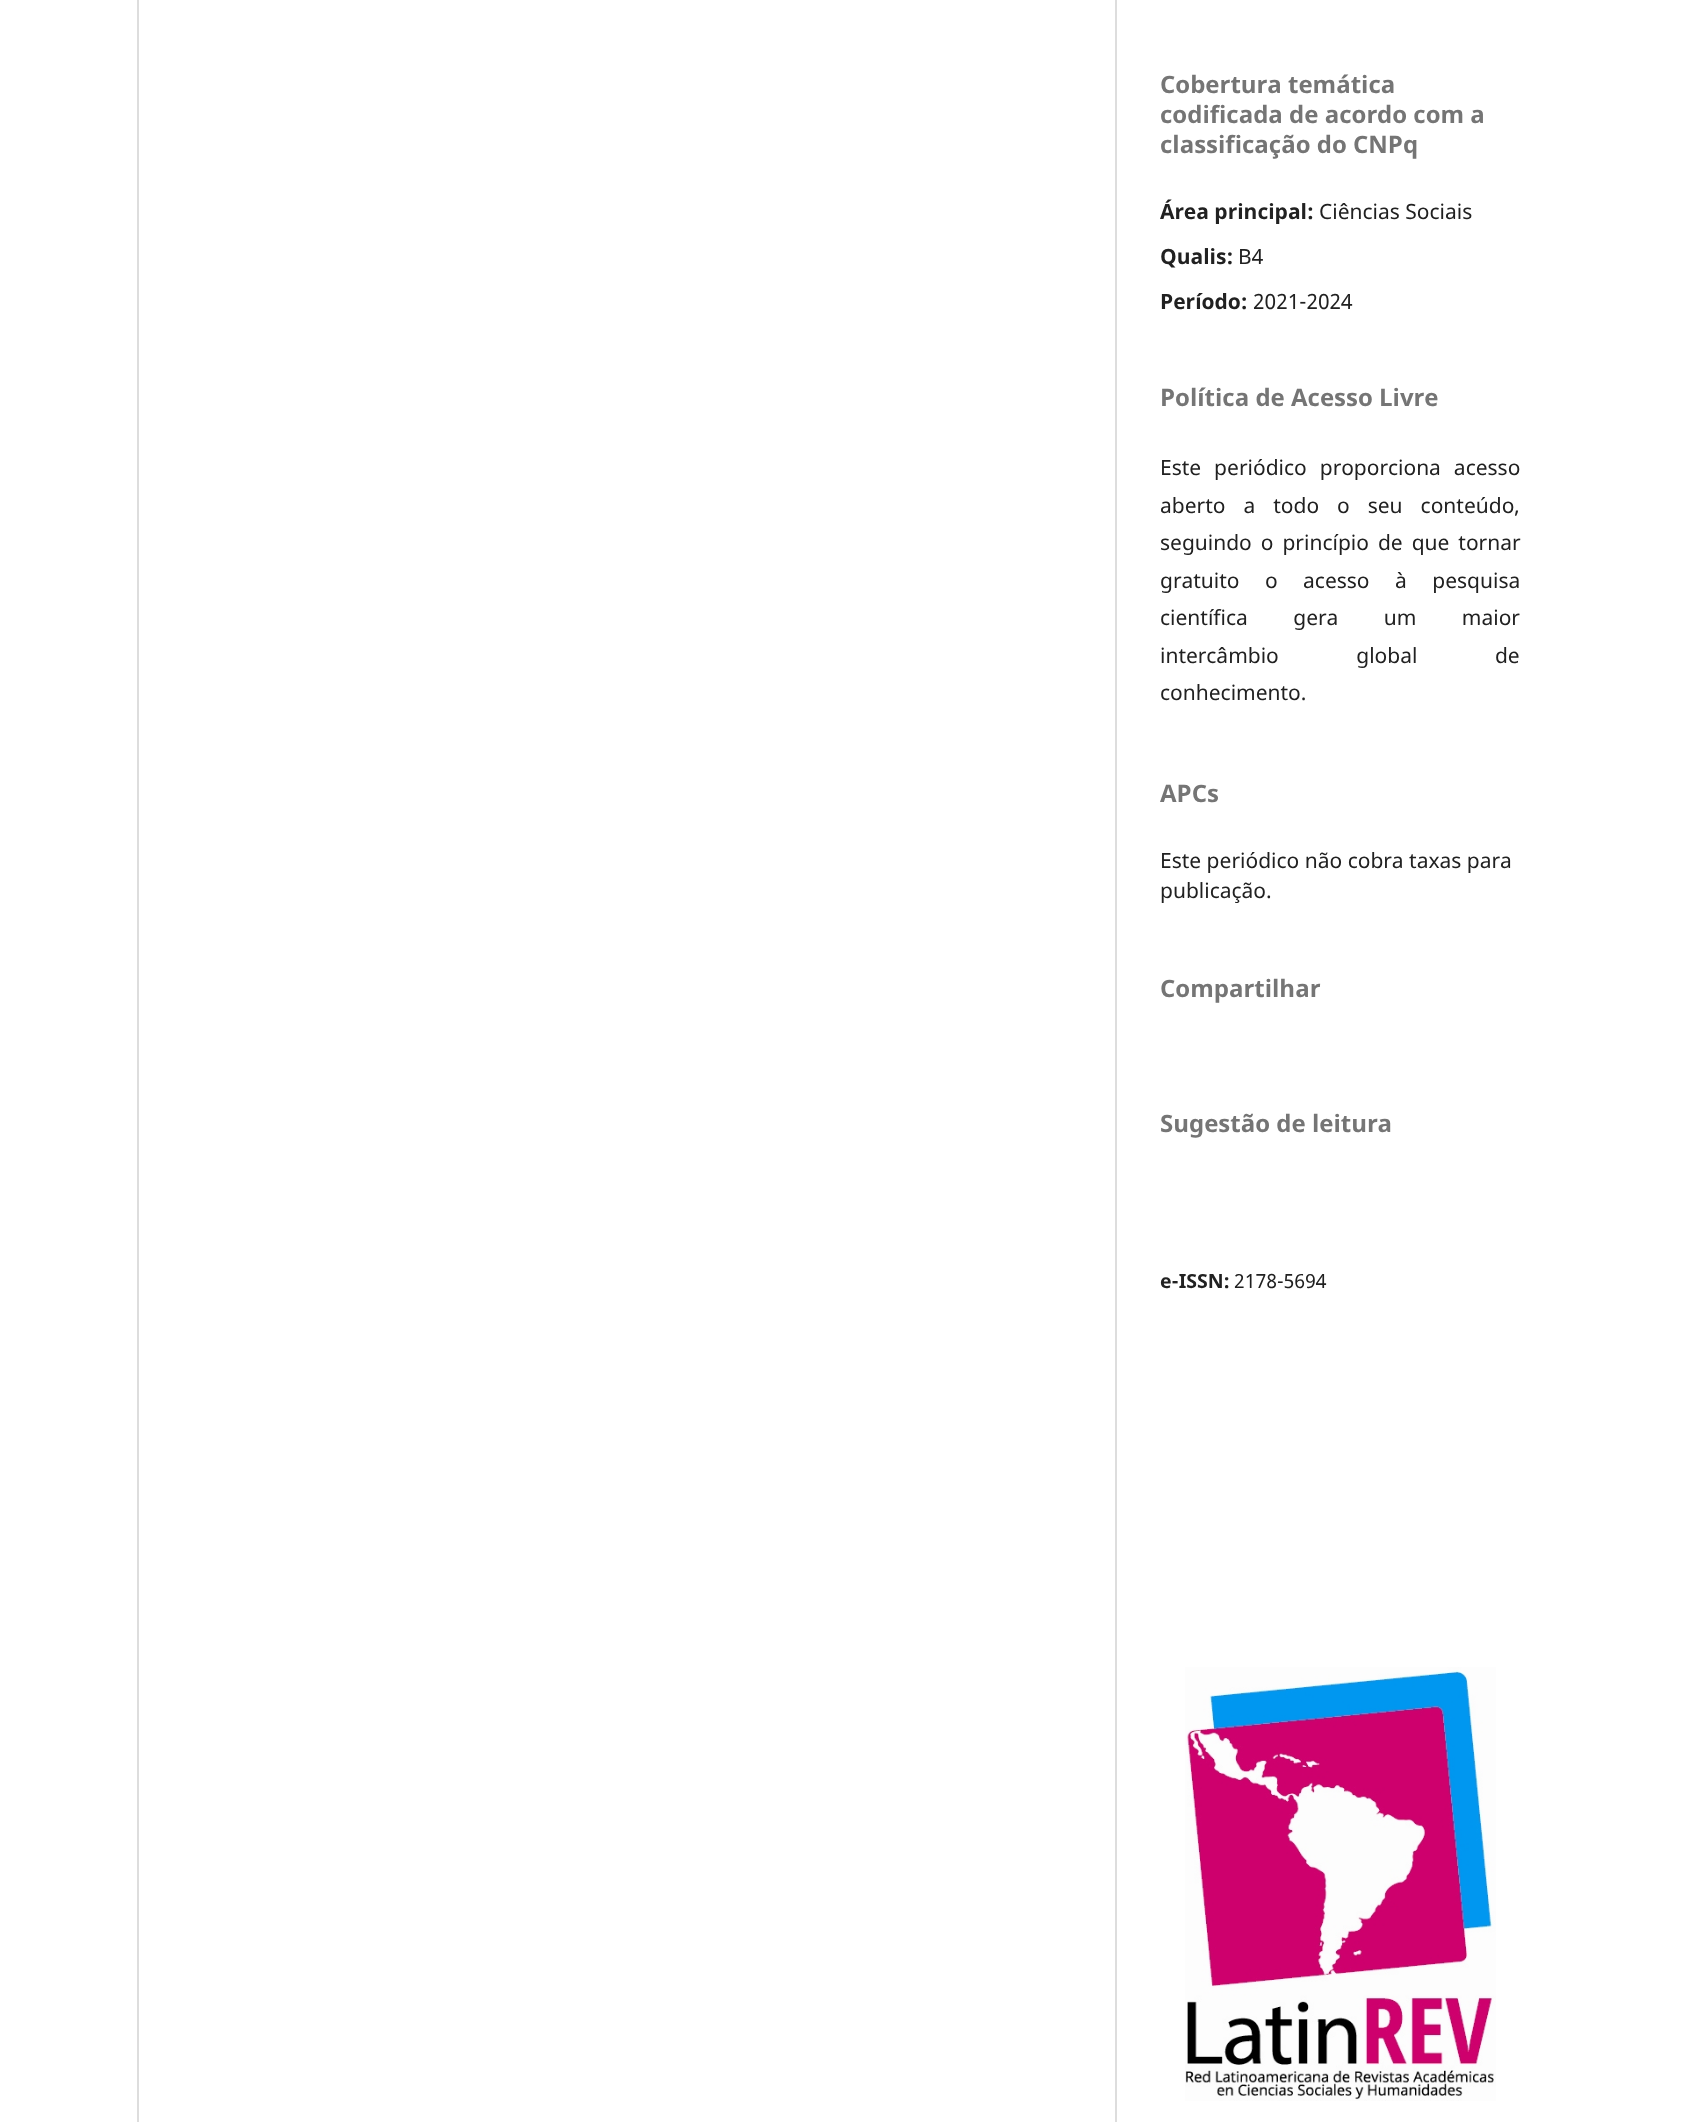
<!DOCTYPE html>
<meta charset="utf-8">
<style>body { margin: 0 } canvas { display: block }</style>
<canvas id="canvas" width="1701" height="2122"></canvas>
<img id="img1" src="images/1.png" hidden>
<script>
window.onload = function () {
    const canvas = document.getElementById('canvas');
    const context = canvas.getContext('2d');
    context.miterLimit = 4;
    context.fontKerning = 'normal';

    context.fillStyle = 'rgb(255, 255, 255)';
    context.fillRect(0, 0, 1701, 2122);
    context.fillStyle = 'rgb(221, 221, 221)';
    context.fillRect(137, 0, 2, 2122);
    context.fillRect(1115, 0, 2, 2122);
    context.drawImage(document.getElementById('img1'), 1185, 1667, 311, 434);
    context.font = 'bold 24px Noto Sans';
    context.fillStyle = 'rgb(117, 117, 117)';
    context.fillText('Cobertura temática', 1160, 93);
    context.fillText('codificada de acordo com a', 1160, 123);
    context.fillText('classificação do CNPq', 1160, 153);
    context.font = 'bold 21px Noto Sans';
    context.fillStyle = 'rgb(33, 33, 33)';
    context.fillText('Área principal:', 1160, 219);
    context.font = '21px Noto Sans';
    context.fillText('Ciências Sociais', 1319, 219);
    context.font = 'bold 21px Noto Sans';
    context.fillText('Qualis:', 1160, 264);
    context.font = '21px Noto Sans';
    context.fillText('B4', 1238, 264);
    context.font = 'bold 21px Noto Sans';
    context.fillText('Período:', 1160, 309);
    context.font = '21px Noto Sans';
    context.fillText('2021-2024', 1253, 309);
    context.font = 'bold 24px Noto Sans';
    context.fillStyle = 'rgb(117, 117, 117)';
    context.fillText('Política de Acesso Livre', 1160, 406);
    context.wordSpacing = '7.5px';
    context.font = '21px Noto Sans';
    context.fillStyle = 'rgb(33, 33, 33)';
    context.fillText('Este periódico proporciona acesso', 1160, 475);
    context.wordSpacing = '12.5px';
    context.fillText('aberto a todo o seu conteúdo,', 1160, 513);
    context.wordSpacing = '3.5px';
    context.fillText('seguindo o princípio de que tornar', 1160, 550);
    context.wordSpacing = '20px';
    context.fillText('gratuito o acesso à pesquisa', 1160, 588);
    context.wordSpacing = '40px';
    context.fillText('científica gera um maior', 1160, 625);
    context.wordSpacing = '72px';
    context.fillText('intercâmbio global de', 1160, 663);
    context.wordSpacing = '0px';
    context.fillText('conhecimento.', 1160, 700);
    context.font = 'bold 24px Noto Sans';
    context.fillStyle = 'rgb(117, 117, 117)';
    context.fillText('APCs', 1160, 802);
    context.font = '21px Noto Sans';
    context.fillStyle = 'rgb(33, 33, 33)';
    context.fillText('Este periódico não cobra taxas para', 1160, 868);
    context.fillText('publicação.', 1160, 898);
    context.font = 'bold 24px Noto Sans';
    context.fillStyle = 'rgb(117, 117, 117)';
    context.fillText('Compartilhar', 1160, 997);
    context.fillText('Sugestão de leitura', 1160, 1132);
    context.font = 'bold 19.5px Noto Sans';
    context.fillStyle = 'rgb(33, 33, 33)';
    context.fillText('e-ISSN:', 1160, 1288);
    context.font = '19.5px Noto Sans';
    context.fillText('2178-5694', 1234, 1288);
};
</script>
